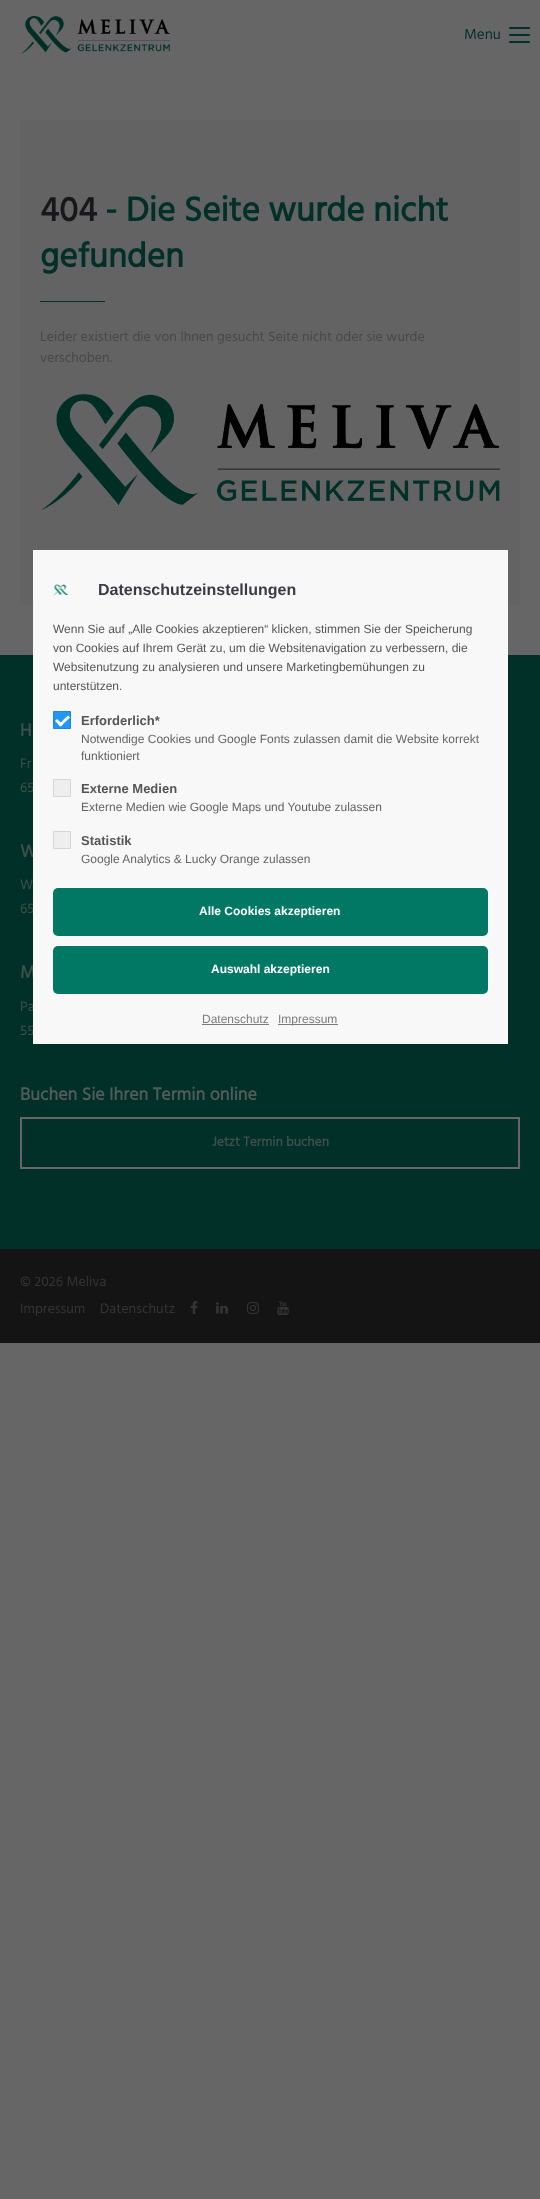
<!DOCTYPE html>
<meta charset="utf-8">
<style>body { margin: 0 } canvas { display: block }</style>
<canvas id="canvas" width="540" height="2199"></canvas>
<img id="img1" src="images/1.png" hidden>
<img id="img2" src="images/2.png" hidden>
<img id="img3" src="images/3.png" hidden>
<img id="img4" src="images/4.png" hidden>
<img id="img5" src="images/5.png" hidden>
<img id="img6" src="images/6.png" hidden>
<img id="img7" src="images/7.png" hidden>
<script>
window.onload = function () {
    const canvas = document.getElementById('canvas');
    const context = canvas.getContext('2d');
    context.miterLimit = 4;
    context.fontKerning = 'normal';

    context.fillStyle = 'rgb(102, 102, 102)';
    context.fillRect(0, 0, 540, 2199);
    context.drawImage(document.getElementById('img1'), 20, 16, 150, 38);
    context.fillStyle = 'rgb(0, 48, 40)';
    context.beginPath();
    context.roundRect(509, 34, 21, 2, 1);
    context.fill();
    context.beginPath();
    context.roundRect(509, 27, 21, 2, 1);
    context.fill();
    context.beginPath();
    context.roundRect(509, 41, 21, 2, 1);
    context.fill();
    context.fillStyle = 'rgb(99, 99, 99)';
    context.fillRect(20, 120, 500, 485);
    context.fillStyle = 'rgb(0, 48, 40)';
    context.fillRect(40, 301, 65, 1);
    context.drawImage(document.getElementById('img2'), 41, 394, 459, 116);
    context.fillRect(0, 655, 540, 594);
    context.strokeStyle = 'rgb(102, 102, 102)';
    context.lineWidth = 2;
    context.strokeRect(21, 1118, 498, 50);
    context.fillStyle = 'rgb(20, 20, 20)';
    context.fillRect(0, 1249, 540, 94);
    context.drawImage(document.getElementById('img3'), 190, 1301, 8, 13);
    context.drawImage(document.getElementById('img4'), 216, 1302, 12, 12);
    context.drawImage(document.getElementById('img5'), 247, 1302, 12, 12);
    context.drawImage(document.getElementById('img6'), 277, 1301, 12, 14);
    context.font = '15px Hind';
    context.fillStyle = 'rgb(0, 48, 40)';
    context.fillText('Menu', 464, 39);
    context.font = 'bold 35px Hind';
    context.fillStyle = 'rgb(24, 24, 26)';
    context.fillText('404', 40, 221);
    context.fillStyle = 'rgb(0, 48, 40)';
    context.fillText('- Die Seite wurde nicht', 105, 221);
    context.fillText('gefunden', 40, 267);
    context.font = '14px Hind';
    context.fillStyle = 'rgb(72, 72, 72)';
    context.fillText('Leider existiert die von Ihnen gesucht Seite nicht oder sie wurde', 40, 341);
    context.fillText('verschoben.', 40, 362);
    context.font = 'bold 18px Hind';
    context.fillStyle = 'rgb(61, 80, 77)';
    context.fillText('H', 20, 736);
    context.font = '14px Hind';
    context.fillText('Fr', 20, 768);
    context.fillText('65', 20, 792);
    context.font = 'bold 18px Hind';
    context.fillText('W', 20, 857);
    context.font = '14px Hind';
    context.fillText('W', 20, 889);
    context.fillText('65', 20, 913);
    context.font = 'bold 18px Hind';
    context.fillText('M', 20, 978);
    context.font = '14px Hind';
    context.fillText('Pa', 20, 1011);
    context.fillText('55', 20, 1035);
    context.font = 'bold 18px Hind';
    context.fillStyle = 'rgb(82, 91, 90)';
    context.fillText('Buchen Sie Ihren Termin online', 20, 1100);
    context.font = 'bold 13.5px Hind';
    context.fillStyle = 'rgb(61, 80, 77)';
    context.fillText('Jetzt Termin buchen', 212, 1146);
    context.font = '14px Hind';
    context.fillStyle = 'rgb(53, 53, 53)';
    context.fillText('© 2026 Meliva', 20, 1286);
    context.fillText('Impressum', 20, 1313);
    context.fillText('Datenschutz', 100, 1313);
    context.fillStyle = 'rgb(248, 248, 248)';
    context.fillRect(33, 550, 475, 494);
    context.drawImage(document.getElementById('img7'), 53, 584, 16, 12);
    context.font = 'bold 16px Liberation Sans';
    context.fillStyle = 'rgb(59, 60, 66)';
    context.fillText('Datenschutzeinstellungen', 98, 595);
    context.font = '12px Liberation Sans';
    context.fillStyle = 'rgb(85, 85, 85)';
    context.fillText('Wenn Sie auf „Alle Cookies akzeptieren“ klicken, stimmen Sie der Speicherung', 53, 633);
    context.fillText('von Cookies auf Ihrem Gerät zu, um die Websitenavigation zu verbessern, die', 53, 652);
    context.fillText('Websitenutzung zu analysieren und unsere Marketingbemühungen zu', 53, 671);
    context.fillText('unterstützen.', 53, 690);
    context.fillStyle = 'rgb(33, 150, 243)';
    context.beginPath();
    context.rect(53.5, 711.5, 17, 17);
    context.fill();
    context.strokeStyle = 'rgb(30, 135, 219)';
    context.lineWidth = 1;
    context.stroke();
    context.fillStyle = 'rgb(255, 255, 255)';
    context.beginPath();
    context.moveTo(68, 715.5);
    context.lineTo(70, 717.5);
    context.lineTo(60.5, 726.5);
    context.lineTo(58.5, 724.5);
    context.closePath();
    context.fill();
    context.beginPath();
    context.moveTo(57, 719);
    context.lineTo(63, 724.5);
    context.lineTo(60.5, 726.5);
    context.lineTo(55, 721);
    context.closePath();
    context.fill();
    context.font = 'bold 13px Liberation Sans';
    context.fillStyle = 'rgb(85, 85, 85)';
    context.fillText('Erforderlich*', 81, 725);
    context.font = '12px Liberation Sans';
    context.fillStyle = 'rgb(99, 99, 99)';
    context.fillText('Notwendige Cookies und Google Fonts zulassen damit die Website korrekt', 81, 743);
    context.fillText('funktioniert', 81, 760);
    context.fillStyle = 'rgb(238, 238, 238)';
    context.beginPath();
    context.rect(53.5, 779.5, 17, 17);
    context.fill();
    context.strokeStyle = 'rgb(214, 214, 214)';
    context.stroke();
    context.font = 'bold 13px Liberation Sans';
    context.fillStyle = 'rgb(85, 85, 85)';
    context.fillText('Externe Medien', 81, 793);
    context.font = '12px Liberation Sans';
    context.fillStyle = 'rgb(99, 99, 99)';
    context.fillText('Externe Medien wie Google Maps und Youtube zulassen', 81, 811);
    context.fillStyle = 'rgb(238, 238, 238)';
    context.beginPath();
    context.rect(53.5, 831.5, 17, 17);
    context.fill();
    context.stroke();
    context.font = 'bold 13px Liberation Sans';
    context.fillStyle = 'rgb(85, 85, 85)';
    context.fillText('Statistik', 81, 845);
    context.font = '12px Liberation Sans';
    context.fillStyle = 'rgb(99, 99, 99)';
    context.fillText('Google Analytics & Lucky Orange zulassen', 81, 863);
    context.fillStyle = 'rgb(0, 120, 100)';
    context.beginPath();
    context.roundRect(53, 888, 435, 48, 5);
    context.fill();
    context.font = 'bold 12px Liberation Sans';
    context.fillStyle = 'rgb(255, 255, 255)';
    context.fillText('Alle Cookies akzeptieren', 199, 915);
    context.fillStyle = 'rgb(0, 120, 100)';
    context.beginPath();
    context.roundRect(53, 946, 435, 48, 5);
    context.fill();
    context.fillStyle = 'rgb(255, 255, 255)';
    context.fillText('Auswahl akzeptieren', 211, 973);
    context.font = '12px Liberation Sans';
    context.fillStyle = 'rgb(124, 124, 124)';
    context.fillText('Datenschutz', 202, 1023);
    context.fillRect(202, 1024, 67, 1);
    context.fillRect(278, 1024, 60, 1);
    context.fillText('Impressum', 278, 1023);
};
</script>
